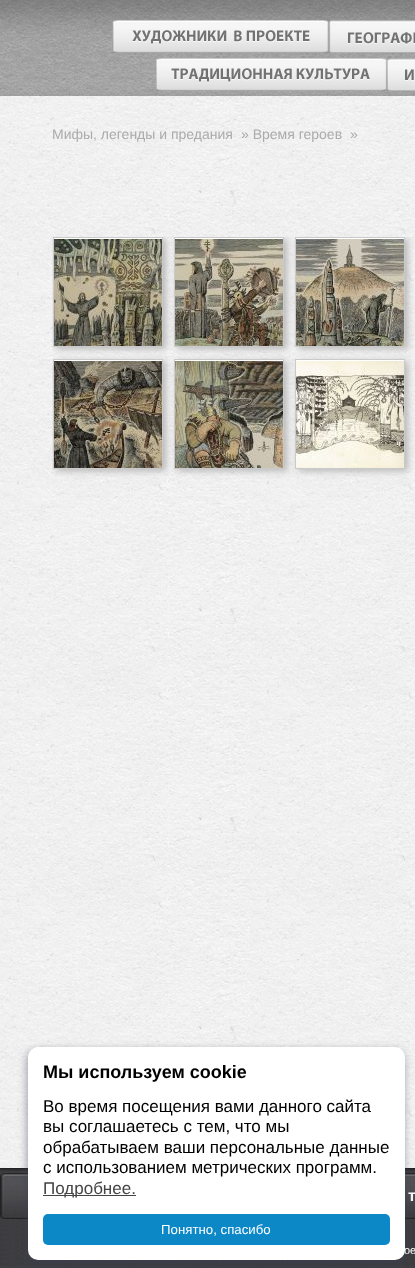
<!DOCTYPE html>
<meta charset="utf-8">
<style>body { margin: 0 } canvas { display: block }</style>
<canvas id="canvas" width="415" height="1268"></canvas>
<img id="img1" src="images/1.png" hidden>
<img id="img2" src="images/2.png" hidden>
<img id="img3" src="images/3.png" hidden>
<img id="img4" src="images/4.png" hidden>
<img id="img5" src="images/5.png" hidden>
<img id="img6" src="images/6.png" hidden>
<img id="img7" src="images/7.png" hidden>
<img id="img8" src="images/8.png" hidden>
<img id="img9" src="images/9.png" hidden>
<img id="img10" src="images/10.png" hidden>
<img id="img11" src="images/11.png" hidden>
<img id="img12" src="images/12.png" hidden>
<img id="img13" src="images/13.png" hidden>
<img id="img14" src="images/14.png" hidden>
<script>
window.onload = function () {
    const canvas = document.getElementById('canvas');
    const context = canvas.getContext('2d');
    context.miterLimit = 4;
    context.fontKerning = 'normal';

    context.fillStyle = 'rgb(255, 255, 255)';
    context.fillRect(0, 0, 415, 1268);
    context.drawImage(document.getElementById('img1'), 0, 96, 415, 1072);
    context.drawImage(document.getElementById('img2'), 0, 0, 415, 96);
    context.drawImage(document.getElementById('img3'), 112, 20, 217, 33);
    context.drawImage(document.getElementById('img4'), 329, 20, 86, 33);
    context.drawImage(document.getElementById('img5'), 156, 58, 231, 33);
    context.drawImage(document.getElementById('img6'), 387, 58, 28, 33);
    context.save();
    context.beginPath();
    context.rect(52, 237, 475, 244);
    context.clip();
    context.fillStyle = 'rgb(182, 182, 182)';
    context.filter = 'blur(3.5px)';
    context.beginPath();
    context.rect(56, 239, 110, 110);
    context.fill();
    context.filter = 'none';
    context.restore();
    context.fillRect(54, 238, 108, 1);
    context.strokeStyle = 'rgb(202, 202, 202)';
    context.strokeRect(53.5, 237.5, 109, 109);
    context.drawImage(document.getElementById('img7'), 54, 239, 108, 107);
    context.save();
    context.beginPath();
    context.rect(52, 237, 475, 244);
    context.clip();
    context.fillStyle = 'rgb(182, 182, 182)';
    context.filter = 'blur(3.5px)';
    context.beginPath();
    context.rect(177, 239, 110, 110);
    context.fill();
    context.filter = 'none';
    context.restore();
    context.fillRect(175, 238, 108, 1);
    context.strokeRect(174.5, 237.5, 109, 109);
    context.drawImage(document.getElementById('img8'), 175, 239, 108, 107);
    context.save();
    context.beginPath();
    context.rect(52, 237, 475, 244);
    context.clip();
    context.fillStyle = 'rgb(182, 182, 182)';
    context.filter = 'blur(3.5px)';
    context.beginPath();
    context.rect(298, 239, 110, 110);
    context.fill();
    context.filter = 'none';
    context.restore();
    context.fillRect(296, 238, 108, 1);
    context.strokeRect(295.5, 237.5, 109, 109);
    context.drawImage(document.getElementById('img9'), 296, 239, 108, 107);
    context.save();
    context.beginPath();
    context.rect(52, 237, 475, 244);
    context.clip();
    context.fillStyle = 'rgb(182, 182, 182)';
    context.filter = 'blur(3.5px)';
    context.beginPath();
    context.rect(56, 361, 110, 110);
    context.fill();
    context.filter = 'none';
    context.restore();
    context.fillRect(54, 360, 108, 1);
    context.strokeRect(53.5, 359.5, 109, 109);
    context.drawImage(document.getElementById('img10'), 54, 361, 108, 107);
    context.fillStyle = 'rgb(182, 182, 182)';
    context.filter = 'blur(3.5px)';
    context.beginPath();
    context.rect(177, 361, 110, 110);
    context.fill();
    context.filter = 'none';
    context.fillStyle = 'rgb(255, 255, 255)';
    context.fillRect(175, 360, 108, 1);
    context.strokeRect(174.5, 359.5, 109, 109);
    context.drawImage(document.getElementById('img11'), 175, 361, 108, 107);
    context.fillStyle = 'rgb(182, 182, 182)';
    context.filter = 'blur(3.5px)';
    context.beginPath();
    context.rect(298, 361, 110, 110);
    context.fill();
    context.filter = 'none';
    context.fillStyle = 'rgb(255, 255, 255)';
    context.fillRect(296, 360, 108, 1);
    context.strokeRect(295.5, 359.5, 109, 109);
    context.drawImage(document.getElementById('img12'), 296, 361, 108, 107);
    context.drawImage(document.getElementById('img13'), 0, 1168, 415, 100);
    context.drawImage(document.getElementById('img14'), 0, 1173, 415, 46);
    context.fillStyle = 'rgba(61, 62, 93, 0.48)';
    context.filter = 'blur(4px)';
    context.beginPath();
    context.roundRect(27, 1050, 377, 213, 10);
    context.fill();
    context.filter = 'none';
    context.fillStyle = 'rgb(255, 255, 255)';
    context.beginPath();
    context.roundRect(28, 1047, 377, 213, 10);
    context.fill();
    context.fillStyle = 'rgb(68, 68, 68)';
    context.fillRect(43, 1195, 93, 1);
    context.fillStyle = 'rgb(13, 136, 199)';
    context.beginPath();
    context.roundRect(43, 1214, 347, 31, 5);
    context.fill();
    context.font = '14px Liberation Sans';
    context.fillStyle = 'rgb(171, 171, 171)';
    context.fillText('Мифы, легенды и предания', 52, 139);
    context.fillText('» Время героев', 241, 139);
    context.fillText('»', 350, 139);
    context.font = 'bold 18px Liberation Sans';
    context.fillStyle = 'rgb(0, 0, 0)';
    context.fillText('Мы используем cookie', 43, 1078);
    context.font = '17px Liberation Sans';
    context.fillText('Во время посещения вами данного сайта', 43, 1112);
    context.fillText('вы соглашаетесь с тем, что мы', 43, 1132);
    context.fillText('обрабатываем ваши персональные данные', 43, 1153);
    context.fillText('с использованием метрических программ.', 43, 1173);
    context.fillStyle = 'rgb(68, 68, 68)';
    context.fillText('Подробнее.', 43, 1194);
    context.font = '13.25px Liberation Sans';
    context.fillStyle = 'rgb(255, 255, 255)';
    context.fillText('Понятно, спасибо', 161, 1234);
    context.font = 'bold 16px Liberation Sans';
    context.fillStyle = 'rgb(245, 245, 248)';
    context.fillText('т', 408, 1201);
    context.font = '11px Liberation Sans';
    context.fillStyle = 'rgb(255, 255, 255)';
    context.fillText('ое', 404, 1254);
};
</script>
